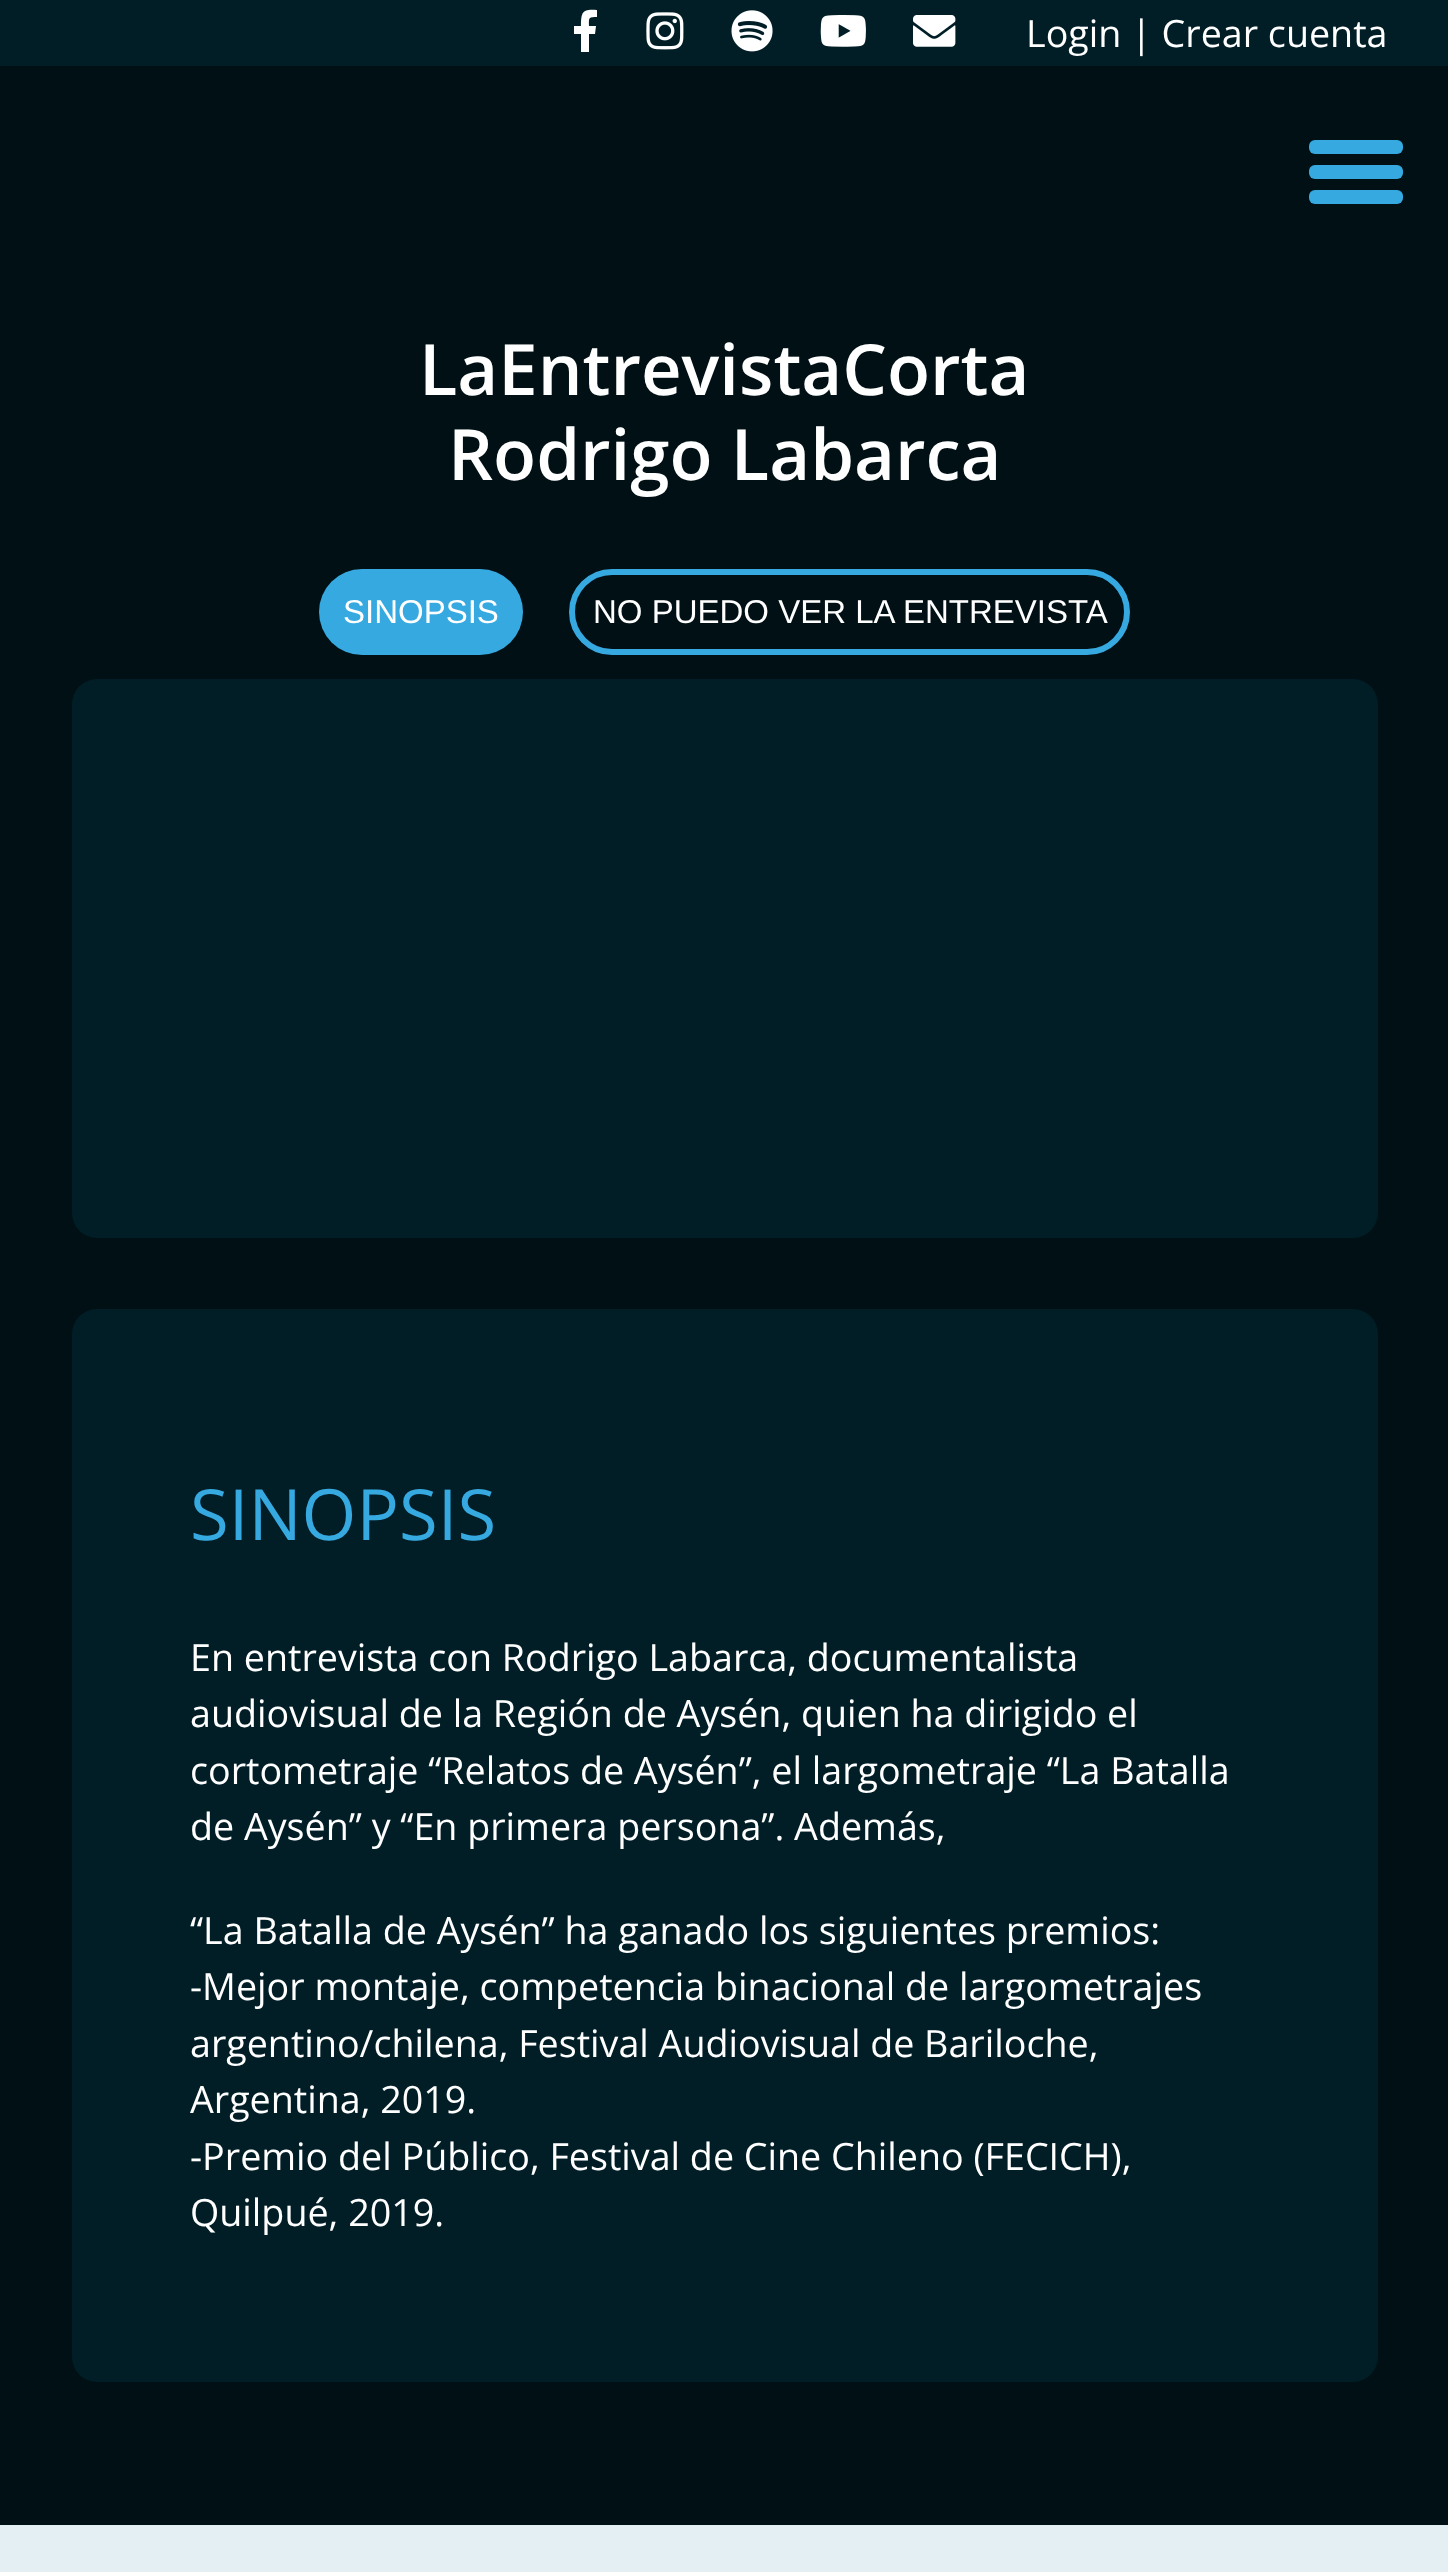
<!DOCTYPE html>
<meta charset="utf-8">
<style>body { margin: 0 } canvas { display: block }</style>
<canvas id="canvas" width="1448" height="2572"></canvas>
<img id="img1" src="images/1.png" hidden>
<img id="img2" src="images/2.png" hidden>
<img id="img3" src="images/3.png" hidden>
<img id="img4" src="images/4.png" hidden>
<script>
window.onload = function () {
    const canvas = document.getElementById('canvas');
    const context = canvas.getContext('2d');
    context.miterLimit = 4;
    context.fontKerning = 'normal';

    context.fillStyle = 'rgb(0, 16, 21)';
    context.fillRect(0, 0, 1448, 2572);
    context.fillStyle = 'rgb(1, 30, 39)';
    context.fillRect(0, 0, 1448, 66);
    context.fillStyle = 'rgb(255, 255, 255)';
    context.beginPath();
    context.moveTo(595, 34);
    context.lineTo(589, 34);
    context.lineTo(589, 52);
    context.lineTo(581, 52);
    context.lineTo(581, 34);
    context.lineTo(574, 34);
    context.lineTo(574, 26);
    context.lineTo(581, 26);
    context.bezierCurveTo(581, 11, 583, 9, 597, 10);
    context.lineTo(597, 17);
    context.bezierCurveTo(588, 17, 589, 18, 589, 26);
    context.lineTo(596, 26);
    context.closePath();
    context.fill();
    context.drawImage(document.getElementById('img1'), 646, 12, 38, 38);
    context.drawImage(document.getElementById('img2'), 731, 10, 42, 42);
    context.drawImage(document.getElementById('img3'), 820, 15, 46, 32);
    context.drawImage(document.getElementById('img4'), 913, 15, 43, 32);
    context.fillStyle = 'rgb(54, 169, 225)';
    context.beginPath();
    context.roundRect(1309, 140, 94, 14, 6);
    context.fill();
    context.beginPath();
    context.roundRect(1309, 165, 94, 14, 6);
    context.fill();
    context.beginPath();
    context.roundRect(1309, 190, 94, 14, 6);
    context.fill();
    context.beginPath();
    context.roundRect(319, 569, 204, 86, 43);
    context.fill();
    context.beginPath();
    context.roundRect(572, 572, 555, 80, 40);
    context.strokeStyle = 'rgb(54, 169, 225)';
    context.lineWidth = 6;
    context.stroke();
    context.fillStyle = 'rgb(1, 30, 39)';
    context.beginPath();
    context.roundRect(72, 679, 1306, 559, 25);
    context.fill();
    context.beginPath();
    context.roundRect(72, 1309, 1306, 1073, 25);
    context.fill();
    context.fillStyle = 'rgb(227, 239, 242)';
    context.fillRect(0, 2525, 1448, 47);
    context.font = '37.65px Open Sans';
    context.fillStyle = 'rgb(255, 255, 255)';
    context.fillText('Login | Crear cuenta', 1026, 47);
    context.font = '600 70.6px Open Sans';
    context.fillText('LaEntrevistaCorta', 419, 395);
    context.fillText('Rodrigo Labarca', 448, 480);
    context.font = '33px Liberation Sans';
    context.fillText('SINOPSIS', 343, 623);
    context.fillText('NO PUEDO VER LA ENTREVISTA', 593, 623);
    context.font = '70.6px Open Sans';
    context.fillStyle = 'rgb(54, 169, 225)';
    context.fillText('SINOPSIS', 190, 1540);
    context.font = '37.65px Open Sans';
    context.fillStyle = 'rgb(255, 255, 255)';
    context.fillText('En entrevista con Rodrigo Labarca, documentalista', 190, 1671);
    context.fillText('audiovisual de la Región de Aysén, quien ha dirigido el', 190, 1727);
    context.fillText('cortometraje “Relatos de Aysén”, el largometraje “La Batalla', 190, 1784);
    context.fillText('de Aysén” y “En primera persona”. Además,', 190, 1840);
    context.fillText('“La Batalla de Aysén” ha ganado los siguientes premios:', 190, 1944);
    context.fillText('-Mejor montaje, competencia binacional de largometrajes', 190, 2000);
    context.fillText('argentino/chilena, Festival Audiovisual de Bariloche,', 190, 2057);
    context.fillText('Argentina, 2019.', 190, 2113);
    context.fillText('-Premio del Público, Festival de Cine Chileno (FECICH),', 190, 2170);
    context.fillText('Quilpué, 2019.', 190, 2226);
};
</script>
